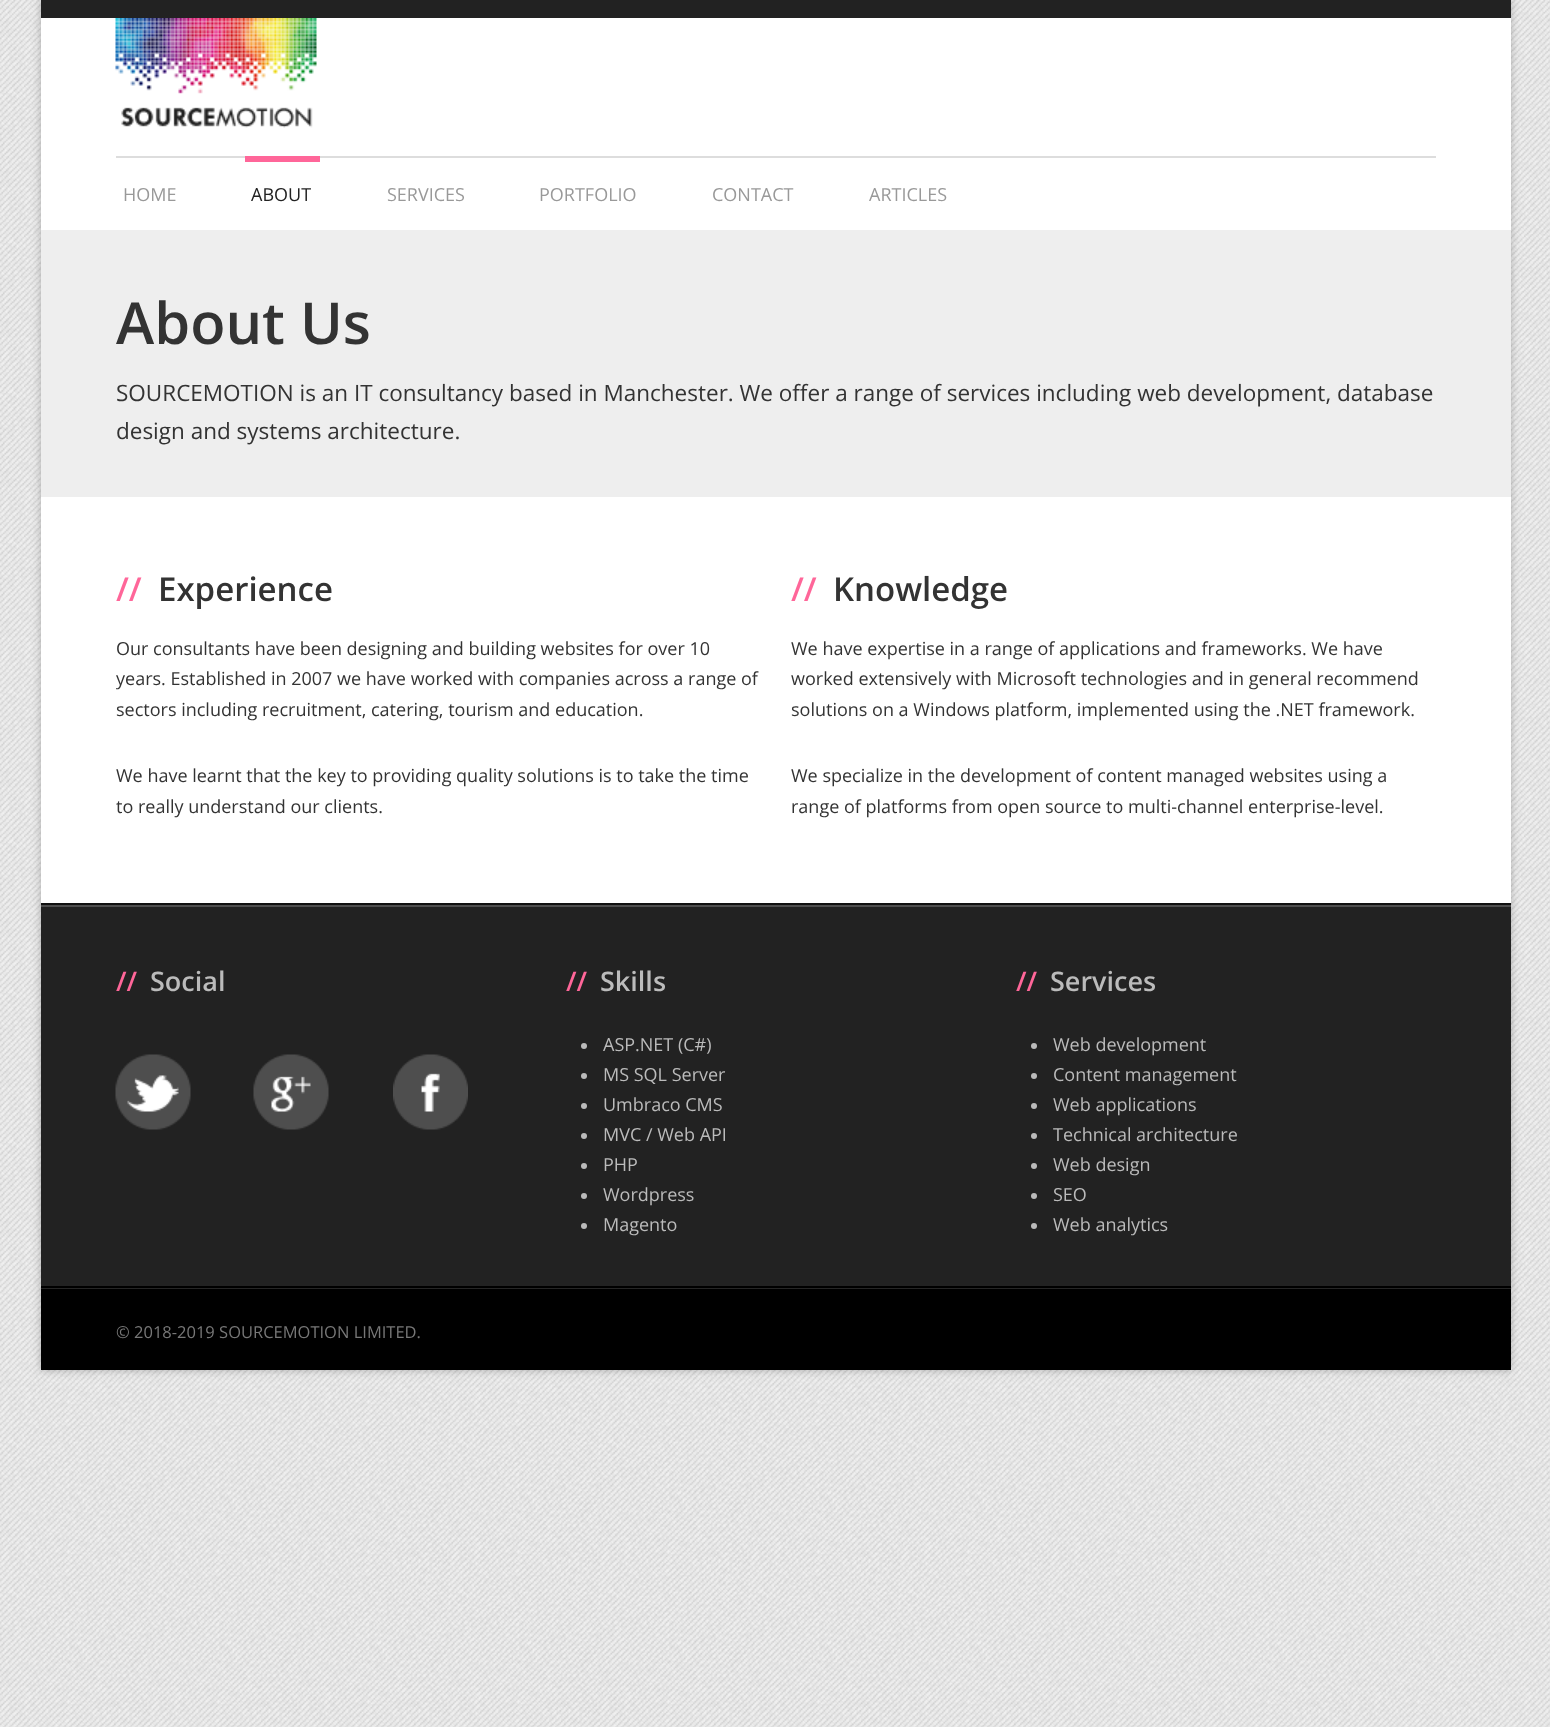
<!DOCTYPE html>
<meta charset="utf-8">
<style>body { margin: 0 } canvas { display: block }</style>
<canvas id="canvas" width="1550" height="1727"></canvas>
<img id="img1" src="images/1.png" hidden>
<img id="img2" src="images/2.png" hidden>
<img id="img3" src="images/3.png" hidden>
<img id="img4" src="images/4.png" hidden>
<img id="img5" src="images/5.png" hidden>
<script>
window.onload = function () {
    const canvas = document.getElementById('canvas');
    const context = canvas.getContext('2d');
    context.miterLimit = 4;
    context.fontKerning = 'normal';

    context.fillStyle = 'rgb(255, 255, 255)';
    context.fillRect(0, 0, 1550, 1727);
    context.drawImage(document.getElementById('img1'), 0, 0, 1550, 1727);
    context.fillStyle = 'rgba(0, 0, 0, 0.25)';
    context.filter = 'blur(4px)';
    context.beginPath();
    context.rect(41, 0, 1470, 1370);
    context.fill();
    context.filter = 'none';
    context.fillStyle = 'rgb(255, 255, 255)';
    context.fillRect(41, 18, 1470, 885);
    context.fillStyle = 'rgb(34, 34, 34)';
    context.fillRect(41, 0, 1470, 18);
    context.drawImage(document.getElementById('img2'), 115, 18, 202, 110);
    context.fillStyle = 'rgb(221, 221, 221)';
    context.fillRect(116, 156, 1320, 2);
    context.fillStyle = 'rgb(255, 102, 153)';
    context.fillRect(245, 156, 75, 6);
    context.fillStyle = 'rgb(238, 238, 238)';
    context.fillRect(41, 230, 1470, 267);
    context.fillStyle = 'rgb(34, 34, 34)';
    context.fillRect(41, 907, 1470, 379);
    context.fillStyle = 'rgb(78, 78, 78)';
    context.fillRect(41, 905, 1470, 2);
    context.fillStyle = 'rgb(17, 17, 17)';
    context.fillRect(41, 903, 1470, 2);
    context.drawImage(document.getElementById('img3'), 115, 1054, 76, 76);
    context.drawImage(document.getElementById('img4'), 253, 1054, 76, 76);
    context.drawImage(document.getElementById('img5'), 393, 1054, 75, 76);
    context.fillStyle = 'rgb(187, 187, 187)';
    context.beginPath();
    context.arc(584, 1046, 3, 0, 2 * Math.PI);
    context.fill();
    context.beginPath();
    context.arc(584, 1076, 3, 0, 2 * Math.PI);
    context.fill();
    context.beginPath();
    context.arc(584, 1106, 3, 0, 2 * Math.PI);
    context.fill();
    context.beginPath();
    context.arc(584, 1136, 3, 0, 2 * Math.PI);
    context.fill();
    context.beginPath();
    context.arc(584, 1166, 3, 0, 2 * Math.PI);
    context.fill();
    context.beginPath();
    context.arc(584, 1196, 3, 0, 2 * Math.PI);
    context.fill();
    context.beginPath();
    context.arc(584, 1226, 3, 0, 2 * Math.PI);
    context.fill();
    context.beginPath();
    context.arc(1034, 1046, 3, 0, 2 * Math.PI);
    context.fill();
    context.beginPath();
    context.arc(1034, 1076, 3, 0, 2 * Math.PI);
    context.fill();
    context.beginPath();
    context.arc(1034, 1106, 3, 0, 2 * Math.PI);
    context.fill();
    context.beginPath();
    context.arc(1034, 1136, 3, 0, 2 * Math.PI);
    context.fill();
    context.beginPath();
    context.arc(1034, 1166, 3, 0, 2 * Math.PI);
    context.fill();
    context.beginPath();
    context.arc(1034, 1196, 3, 0, 2 * Math.PI);
    context.fill();
    context.beginPath();
    context.arc(1034, 1226, 3, 0, 2 * Math.PI);
    context.fill();
    context.fillStyle = 'rgb(0, 0, 0)';
    context.fillRect(41, 1289, 1470, 81);
    context.fillStyle = 'rgb(38, 38, 38)';
    context.fillRect(41, 1288, 1470, 1);
    context.fillStyle = 'rgb(0, 0, 0)';
    context.fillRect(41, 1286, 1470, 2);
    context.font = '18px Open Sans';
    context.fillStyle = 'rgb(153, 153, 153)';
    context.fillText('HOME', 123, 201);
    context.fillStyle = 'rgb(34, 34, 34)';
    context.fillText('ABOUT', 251, 201);
    context.fillStyle = 'rgb(153, 153, 153)';
    context.fillText('SERVICES', 387, 201);
    context.fillText('PORTFOLIO', 539, 201);
    context.fillText('CONTACT', 712, 201);
    context.fillText('ARTICLES', 869, 201);
    context.font = '600 57.75px Open Sans';
    context.fillStyle = 'rgb(51, 51, 51)';
    context.fillText('About Us', 116, 344);
    context.font = '22.5px Open Sans';
    context.fillText('SOURCEMOTION is an IT consultancy based in Manchester. We offer a range of services including web development, database', 116, 401);
    context.fillText('design and systems architecture.', 116, 439);
    context.font = '600 33px Open Sans';
    context.fillStyle = 'rgb(255, 102, 153)';
    context.fillText('//', 116, 601);
    context.fillStyle = 'rgb(51, 51, 51)';
    context.fillText('Experience', 158, 601);
    context.font = '18px Open Sans';
    context.fillText('Our consultants have been designing and building websites for over 10', 116, 655);
    context.fillText('years. Established in 2007 we have worked with companies across a range of', 116, 685);
    context.fillText('sectors including recruitment, catering, tourism and education.', 116, 716);
    context.fillText('We have learnt that the key to providing quality solutions is to take the time', 116, 782);
    context.fillText('to really understand our clients.', 116, 813);
    context.font = '600 33px Open Sans';
    context.fillStyle = 'rgb(255, 102, 153)';
    context.fillText('//', 791, 601);
    context.fillStyle = 'rgb(51, 51, 51)';
    context.fillText('Knowledge', 833, 601);
    context.font = '18px Open Sans';
    context.fillText('We have expertise in a range of applications and frameworks. We have', 791, 655);
    context.fillText('worked extensively with Microsoft technologies and in general recommend', 791, 685);
    context.fillText('solutions on a Windows platform, implemented using the .NET framework.', 791, 716);
    context.fillText('We specialize in the development of content managed websites using a', 791, 782);
    context.fillText('range of platforms from open source to multi-channel enterprise-level.', 791, 813);
    context.font = '600 27px Open Sans';
    context.fillStyle = 'rgb(255, 102, 153)';
    context.fillText('//', 116, 991);
    context.fillStyle = 'rgb(187, 187, 187)';
    context.fillText('Social', 150, 991);
    context.fillStyle = 'rgb(255, 102, 153)';
    context.fillText('//', 566, 991);
    context.fillStyle = 'rgb(187, 187, 187)';
    context.fillText('Skills', 600, 991);
    context.font = '18px Open Sans';
    context.fillText('ASP.NET (C#)', 603, 1051);
    context.fillText('MS SQL Server', 603, 1081);
    context.fillText('Umbraco CMS', 603, 1111);
    context.fillText('MVC / Web API', 603, 1141);
    context.fillText('PHP', 603, 1171);
    context.fillText('Wordpress', 603, 1201);
    context.fillText('Magento', 603, 1231);
    context.font = '600 27px Open Sans';
    context.fillStyle = 'rgb(255, 102, 153)';
    context.fillText('//', 1016, 991);
    context.fillStyle = 'rgb(187, 187, 187)';
    context.fillText('Services', 1050, 991);
    context.font = '18px Open Sans';
    context.fillText('Web development', 1053, 1051);
    context.fillText('Content management', 1053, 1081);
    context.fillText('Web applications', 1053, 1111);
    context.fillText('Technical architecture', 1053, 1141);
    context.fillText('Web design', 1053, 1171);
    context.fillText('SEO', 1053, 1201);
    context.fillText('Web analytics', 1053, 1231);
    context.font = '16.5px Open Sans';
    context.fillStyle = 'rgb(119, 119, 119)';
    context.fillText('© 2018-2019 SOURCEMOTION LIMITED.', 116, 1338);
};
</script>
